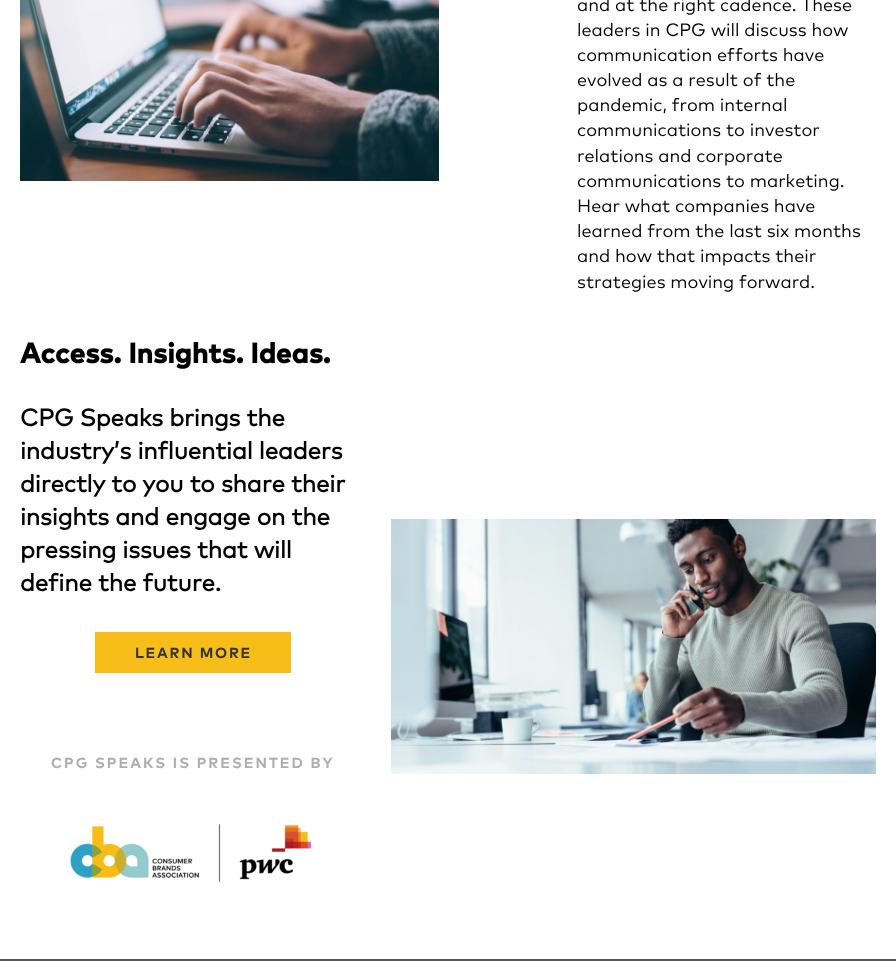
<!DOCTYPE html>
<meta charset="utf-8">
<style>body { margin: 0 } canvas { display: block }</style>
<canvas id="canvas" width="896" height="961"></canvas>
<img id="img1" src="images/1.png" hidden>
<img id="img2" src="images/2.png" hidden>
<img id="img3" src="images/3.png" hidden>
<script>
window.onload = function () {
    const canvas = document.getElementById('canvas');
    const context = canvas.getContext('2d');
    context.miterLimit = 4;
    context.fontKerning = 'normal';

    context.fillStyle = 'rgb(255, 255, 255)';
    context.fillRect(0, 0, 896, 961);
    context.drawImage(document.getElementById('img1'), 20, 0, 419, 181);
    context.fillStyle = 'rgb(247, 189, 25)';
    context.fillRect(95, 632, 196, 41);
    context.drawImage(document.getElementById('img2'), 70, 824, 242, 59);
    context.drawImage(document.getElementById('img3'), 391, 519, 485, 255);
    context.fillStyle = 'rgb(83, 86, 90)';
    context.fillRect(0, 959, 896, 2);
    context.font = '18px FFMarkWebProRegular';
    context.fillStyle = 'rgb(0, 0, 0)';
    context.fillText('and at the right cadence. These', 577, 11);
    context.fillText('leaders in CPG will discuss how', 577, 36);
    context.fillText('communication efforts have', 577, 61);
    context.fillText('evolved as a result of the', 577, 86);
    context.fillText('pandemic, from internal', 577, 111);
    context.fillText('communications to investor', 577, 136);
    context.fillText('relations and corporate', 577, 162);
    context.fillText('communications to marketing.', 577, 187);
    context.fillText('Hear what companies have', 577, 212);
    context.fillText('learned from the last six months', 577, 237);
    context.fillText('and how that impacts their', 577, 262);
    context.fillText('strategies moving forward.', 577, 288);
    context.font = 'bold 28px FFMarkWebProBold';
    context.fillText('Access. Insights. Ideas.', 20, 363);
    context.letterSpacing = '-0.15px';
    context.font = 'bold 24px FFMarkWebProRegular';
    context.fillText('CPG Speaks brings the', 20, 426);
    context.fillText('industry’s influential leaders', 20, 459);
    context.fillText('directly to you to share their', 20, 492);
    context.fillText('insights and engage on the', 20, 525);
    context.fillText('pressing issues that will', 20, 558);
    context.fillText('define the future.', 20, 591);
    context.letterSpacing = '1.75px';
    context.font = '14.6px FFMarkWebProBold';
    context.fillStyle = 'rgb(51, 51, 51)';
    context.fillText('LEARN MORE', 135, 658);
    context.letterSpacing = '2px';
    context.fillStyle = 'rgb(172, 174, 176)';
    context.fillText('CPG SPEAKS IS PRESENTED BY', 51, 768);
};
</script>
